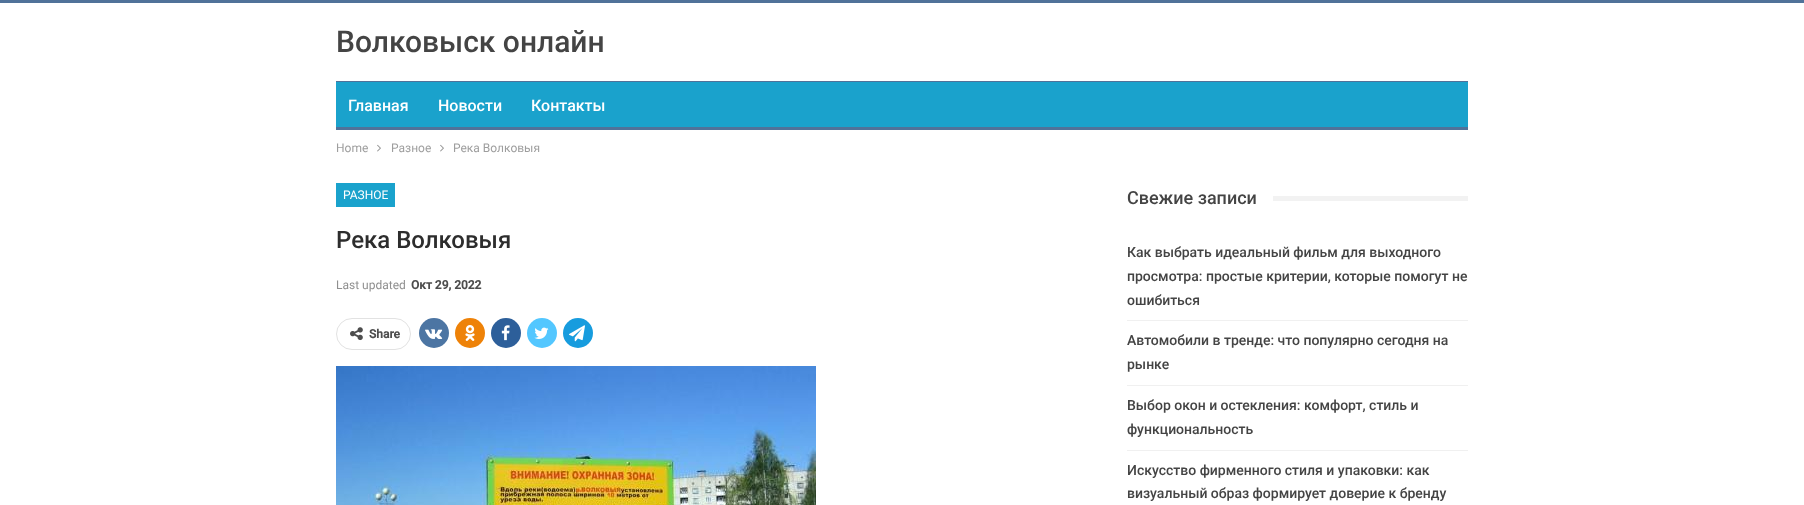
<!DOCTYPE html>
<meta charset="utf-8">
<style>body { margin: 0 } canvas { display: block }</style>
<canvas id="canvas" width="1804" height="505"></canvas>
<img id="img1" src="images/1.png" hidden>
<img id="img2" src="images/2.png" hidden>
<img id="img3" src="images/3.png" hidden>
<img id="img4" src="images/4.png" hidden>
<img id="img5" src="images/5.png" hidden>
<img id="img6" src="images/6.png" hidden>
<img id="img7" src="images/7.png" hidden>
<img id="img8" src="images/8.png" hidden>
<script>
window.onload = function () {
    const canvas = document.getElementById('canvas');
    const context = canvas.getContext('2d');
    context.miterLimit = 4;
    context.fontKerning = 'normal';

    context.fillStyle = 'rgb(255, 255, 255)';
    context.fillRect(0, 0, 1804, 505);
    context.fillStyle = 'rgb(80, 114, 153)';
    context.fillRect(0, 0, 1804, 3);
    context.fillStyle = 'rgb(26, 162, 204)';
    context.fillRect(336, 82, 1132, 45);
    context.fillStyle = 'rgb(80, 114, 153)';
    context.fillRect(336, 81, 1132, 1);
    context.fillRect(336, 127, 1132, 3);
    context.drawImage(document.getElementById('img1'), 377, 144, 4, 8);
    context.drawImage(document.getElementById('img1'), 440, 144, 4, 8);
    context.fillStyle = 'rgb(26, 162, 204)';
    context.fillRect(336, 183, 59, 24);
    context.beginPath();
    context.roundRect(336.5, 318.5, 74, 31, 15.5);
    context.strokeStyle = 'rgb(226, 226, 226)';
    context.stroke();
    context.drawImage(document.getElementById('img2'), 350, 327, 13, 14);
    context.fillStyle = 'rgb(76, 117, 163)';
    context.beginPath();
    context.arc(434, 333, 15, 0, 2 * Math.PI);
    context.fill();
    context.drawImage(document.getElementById('img3'), 425, 329, 18, 10);
    context.fillStyle = 'rgb(238, 130, 8)';
    context.beginPath();
    context.arc(470, 333, 15, 0, 2 * Math.PI);
    context.fill();
    context.drawImage(document.getElementById('img4'), 465, 325, 10, 16);
    context.fillStyle = 'rgb(45, 95, 154)';
    context.beginPath();
    context.arc(506, 333, 15, 0, 2 * Math.PI);
    context.fill();
    context.drawImage(document.getElementById('img5'), 501, 325, 9, 16);
    context.fillStyle = 'rgb(83, 199, 255)';
    context.beginPath();
    context.arc(542, 333, 15, 0, 2 * Math.PI);
    context.fill();
    context.drawImage(document.getElementById('img6'), 534, 327, 15, 12);
    context.fillStyle = 'rgb(23, 156, 222)';
    context.beginPath();
    context.arc(578, 333, 15, 0, 2 * Math.PI);
    context.fill();
    context.drawImage(document.getElementById('img7'), 569, 325, 16, 17);
    context.drawImage(document.getElementById('img8'), 336, 366, 480, 139);
    context.fillStyle = 'rgb(242, 242, 242)';
    context.fillRect(1273, 196, 195, 5);
    context.fillStyle = 'rgb(240, 240, 240)';
    context.fillRect(1127, 320, 341, 1);
    context.fillRect(1127, 385, 341, 1);
    context.fillRect(1127, 450, 341, 1);
    context.font = '500 30px Roboto';
    context.fillStyle = 'rgb(68, 68, 68)';
    context.fillText('Волковыск онлайн', 336, 52);
    context.font = '500 16px Roboto';
    context.fillStyle = 'rgb(255, 255, 255)';
    context.fillText('Главная', 348, 111);
    context.fillText('Новости', 438, 111);
    context.fillText('Контакты', 531, 111);
    context.font = '12px Roboto';
    context.fillStyle = 'rgb(158, 158, 158)';
    context.fillText('Home', 336, 152);
    context.fillText('Разное', 391, 152);
    context.fillText('Река Волковыя', 453, 152);
    context.fillStyle = 'rgb(255, 255, 255)';
    context.fillText('РАЗНОЕ', 343, 199);
    context.font = '500 24px Roboto';
    context.fillStyle = 'rgb(45, 45, 45)';
    context.fillText('Река Волковыя', 336, 248);
    context.font = '12px Roboto';
    context.fillStyle = 'rgb(143, 143, 143)';
    context.fillText('Last updated', 336, 289);
    context.font = 'bold 12px Roboto';
    context.fillStyle = 'rgb(77, 77, 77)';
    context.fillText('Окт 29, 2022', 411, 289);
    context.fillText('Share', 369, 338);
    context.font = '500 18px Roboto';
    context.fillStyle = 'rgb(68, 68, 68)';
    context.fillText('Свежие записи', 1127, 204);
    context.font = '500 14px Roboto';
    context.fillText('Как выбрать идеальный фильм для выходного', 1127, 257);
    context.fillText('просмотра: простые критерии, которые помогут не', 1127, 281);
    context.fillText('ошибиться', 1127, 305);
    context.fillText('Автомобили в тренде: что популярно сегодня на', 1127, 345);
    context.fillText('рынке', 1127, 369);
    context.fillText('Выбор окон и остекления: комфорт, стиль и', 1127, 410);
    context.fillText('функциональность', 1127, 434);
    context.fillText('Искусство фирменного стиля и упаковки: как', 1127, 475);
    context.fillText('визуальный образ формирует доверие к бренду', 1127, 498);
};
</script>
